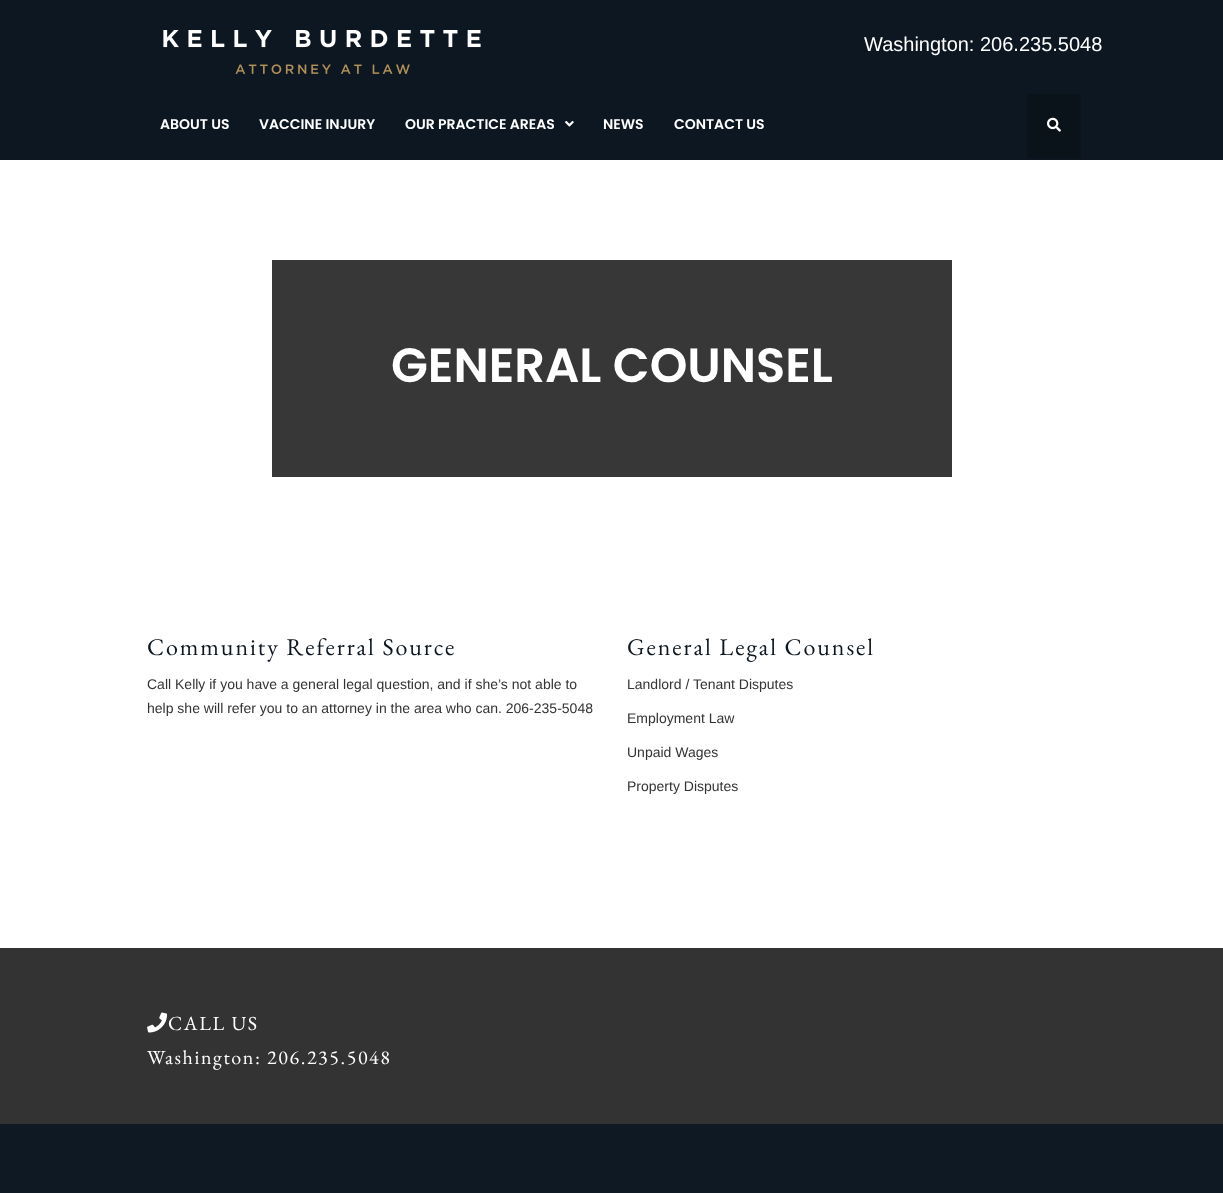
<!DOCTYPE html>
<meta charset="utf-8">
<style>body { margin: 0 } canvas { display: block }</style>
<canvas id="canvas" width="1223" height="1193"></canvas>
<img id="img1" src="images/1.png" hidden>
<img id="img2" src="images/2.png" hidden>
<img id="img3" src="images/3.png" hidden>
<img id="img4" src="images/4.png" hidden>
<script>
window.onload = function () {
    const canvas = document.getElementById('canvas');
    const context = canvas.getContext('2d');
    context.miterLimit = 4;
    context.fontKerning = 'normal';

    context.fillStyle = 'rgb(255, 255, 255)';
    context.fillRect(0, 0, 1223, 1193);
    context.fillStyle = 'rgb(13, 23, 33)';
    context.fillRect(0, 0, 1223, 160);
    context.drawImage(document.getElementById('img1'), 163, 30, 318, 44);
    context.drawImage(document.getElementById('img2'), 565, 121, 9, 6);
    context.fillStyle = 'rgb(10, 18, 26)';
    context.fillRect(1027, 94, 54, 64);
    context.drawImage(document.getElementById('img3'), 1047, 117, 14, 15);
    context.fillStyle = 'rgb(55, 55, 55)';
    context.fillRect(272, 260, 680, 217);
    context.fillStyle = 'rgb(51, 51, 51)';
    context.fillRect(0, 948, 1223, 176);
    context.drawImage(document.getElementById('img4'), 147, 1012, 20, 21);
    context.fillStyle = 'rgb(14, 25, 36)';
    context.fillRect(0, 1124, 1223, 69);
    context.font = '20px Liberation Sans';
    context.fillStyle = 'rgb(255, 255, 255)';
    context.fillText('Washington: 206.235.5048', 864, 51);
    context.font = '600 14px Poppins';
    context.fillText('ABOUT US', 160, 129);
    context.fillText('VACCINE INJURY', 259, 129);
    context.fillText('OUR PRACTICE AREAS', 405, 129);
    context.fillText('NEWS', 603, 129);
    context.fillText('CONTACT US', 674, 129);
    context.font = '600 48px Poppins';
    context.fillText('GENERAL COUNSEL', 391, 382);
    context.letterSpacing = '1.9px';
    context.font = '24px EB Garamond';
    context.fillStyle = 'rgb(13, 23, 33)';
    context.fillText('Community Referral Source', 147, 655);
    context.letterSpacing = '0px';
    context.font = '14px Liberation Sans';
    context.fillStyle = 'rgb(51, 51, 51)';
    context.fillText('Call Kelly if you have a general legal question, and if she’s not able to', 147, 689);
    context.fillText('help she will refer you to an attorney in the area who can. 206-235-5048', 147, 713);
    context.letterSpacing = '1.9px';
    context.font = '24px EB Garamond';
    context.fillStyle = 'rgb(13, 23, 33)';
    context.fillText('General Legal Counsel', 627, 655);
    context.letterSpacing = '0px';
    context.font = '14px Liberation Sans';
    context.fillStyle = 'rgb(51, 51, 51)';
    context.fillText('Landlord / Tenant Disputes', 627, 689);
    context.fillText('Employment Law', 627, 723);
    context.fillText('Unpaid Wages', 627, 757);
    context.fillText('Property Disputes', 627, 791);
    context.letterSpacing = '1.6px';
    context.font = '20px EB Garamond';
    context.fillStyle = 'rgb(255, 255, 255)';
    context.fillText('CALL US', 168, 1030);
    context.fillText('Washington: 206.235.5048', 147, 1064);
};
</script>
